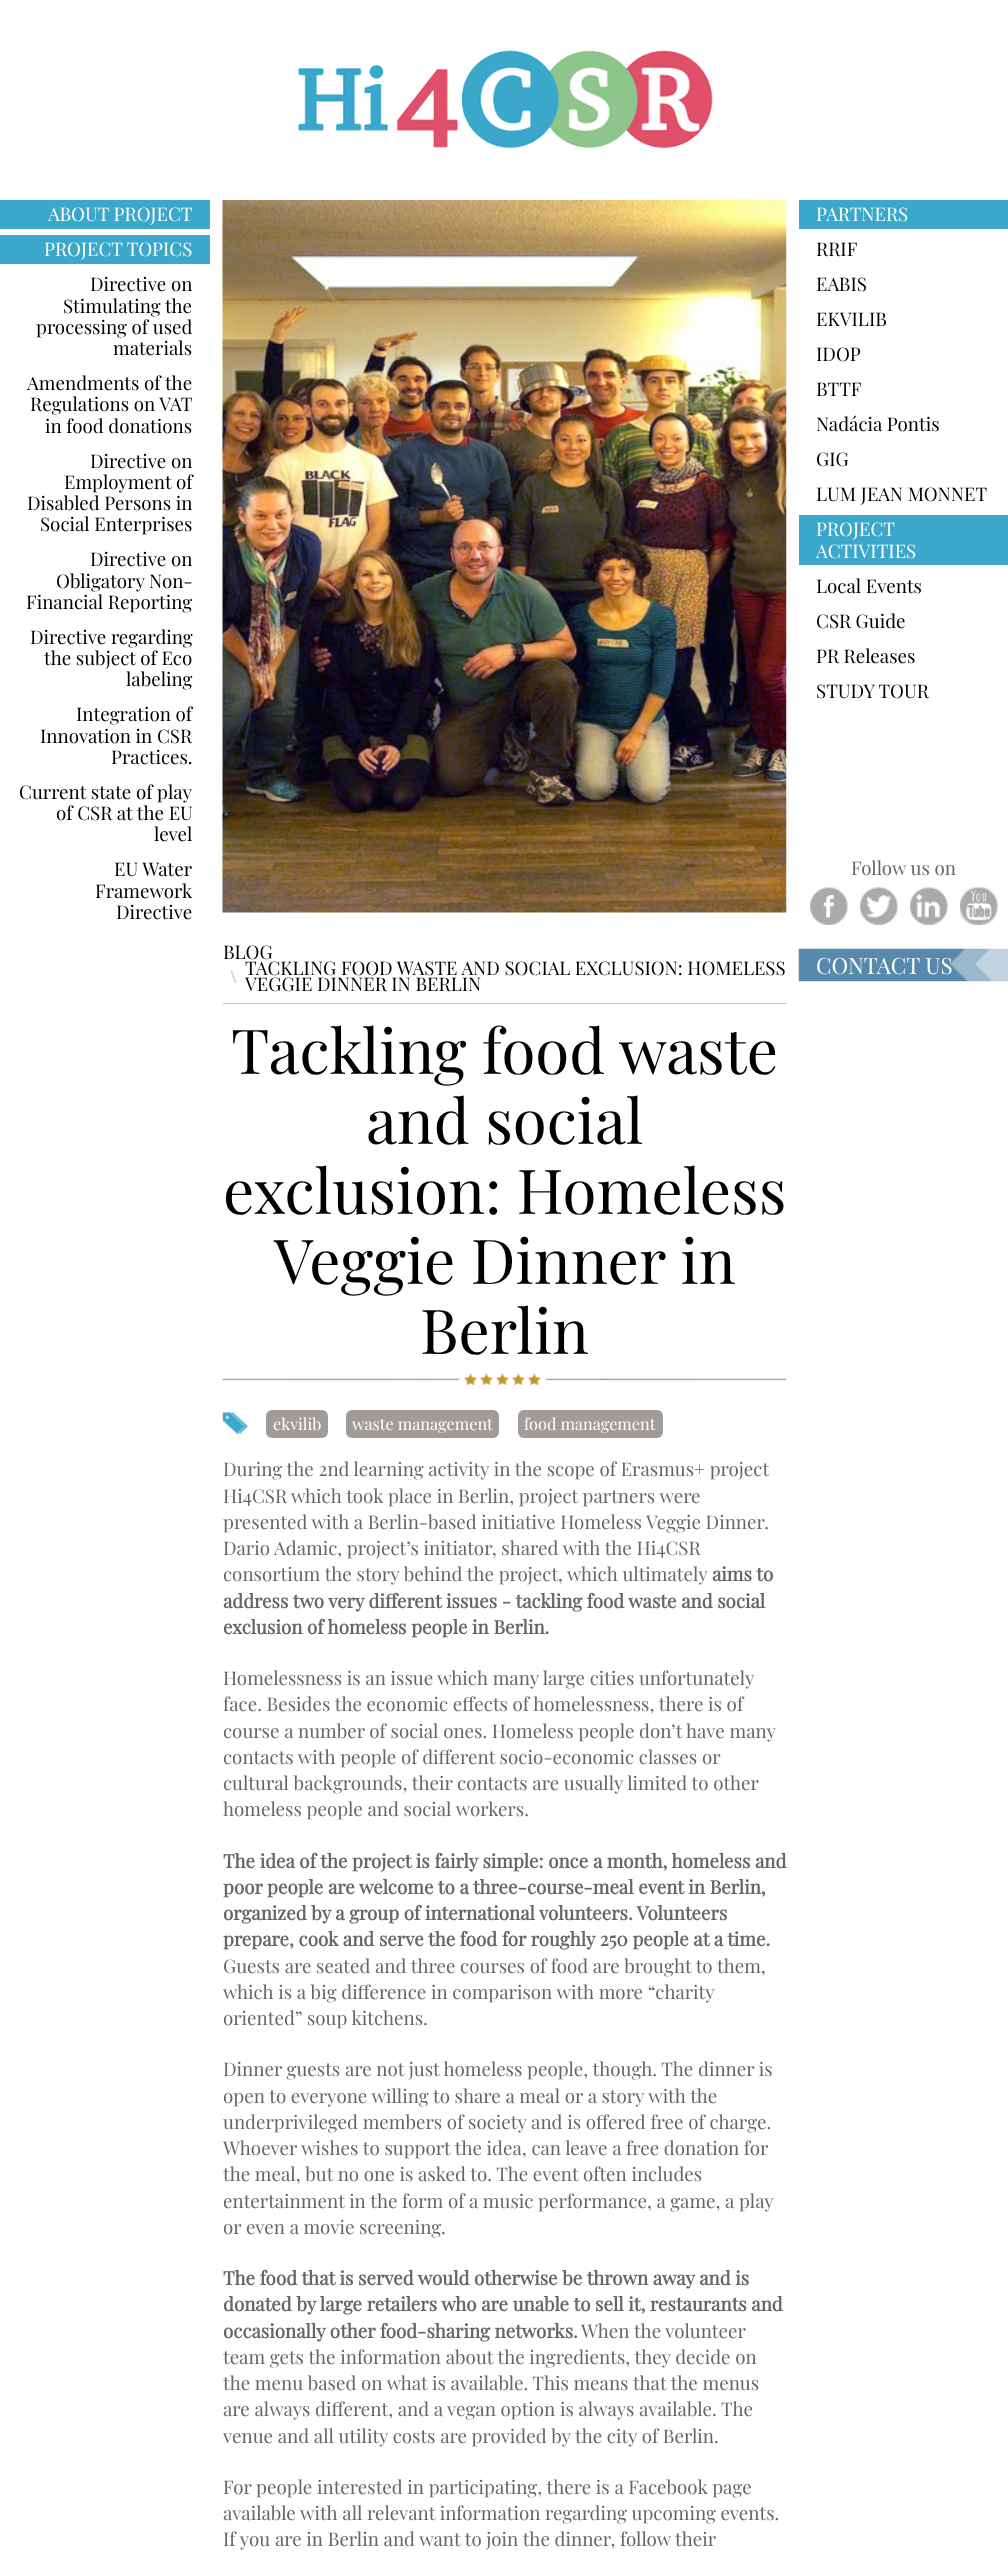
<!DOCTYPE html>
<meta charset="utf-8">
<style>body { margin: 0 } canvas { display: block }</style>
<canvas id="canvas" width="1008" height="2566"></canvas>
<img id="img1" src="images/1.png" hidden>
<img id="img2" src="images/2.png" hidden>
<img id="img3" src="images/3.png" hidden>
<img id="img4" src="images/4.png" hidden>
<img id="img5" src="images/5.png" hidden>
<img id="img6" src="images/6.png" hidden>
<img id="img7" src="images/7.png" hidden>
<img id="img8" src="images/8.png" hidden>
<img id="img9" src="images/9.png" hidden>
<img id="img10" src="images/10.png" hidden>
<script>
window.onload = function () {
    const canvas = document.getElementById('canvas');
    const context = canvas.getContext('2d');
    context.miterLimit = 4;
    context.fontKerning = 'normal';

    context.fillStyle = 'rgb(255, 255, 255)';
    context.fillRect(0, 0, 1008, 2566);
    context.drawImage(document.getElementById('img1'), 298, 50, 415, 99);
    context.fillStyle = 'rgb(59, 168, 203)';
    context.fillRect(0, 200, 210, 29);
    context.fillRect(0, 235, 210, 29);
    context.fillRect(799, 200, 209, 29);
    context.fillRect(799, 515, 209, 50);
    context.drawImage(document.getElementById('img2'), 810, 887, 38, 38);
    context.drawImage(document.getElementById('img3'), 860, 887, 38, 38);
    context.drawImage(document.getElementById('img4'), 910, 887, 38, 38);
    context.drawImage(document.getElementById('img5'), 960, 887, 38, 38);
    context.drawImage(document.getElementById('img6'), 798, 948, 210, 34);
    context.drawImage(document.getElementById('img7'), 222, 200, 565, 713);
    context.drawImage(document.getElementById('img8'), 230, 970, 7, 13);
    context.drawImage(document.getElementById('img9'), 222, 1373, 565, 12);
    context.fillStyle = 'rgb(196, 195, 188)';
    context.fillRect(223, 1003, 563, 1);
    context.drawImage(document.getElementById('img10'), 222, 1412, 26, 22);
    context.fillStyle = 'rgb(161, 156, 154)';
    context.beginPath();
    context.roundRect(266, 1410, 62, 28, 6);
    context.fill();
    context.beginPath();
    context.roundRect(346, 1410, 153, 28, 6);
    context.fill();
    context.beginPath();
    context.roundRect(518, 1410, 145, 28, 6);
    context.fill();
    context.font = '18.75px Playfair Display';
    context.fillStyle = 'rgb(255, 255, 255)';
    context.fillText('ABOUT PROJECT', 48, 221);
    context.fillText('PROJECT TOPICS', 44, 256);
    context.fillStyle = 'rgb(0, 0, 0)';
    context.fillText('Directive on', 90, 291);
    context.fillText('Stimulating the', 63, 313);
    context.fillText('processing of used', 36, 334);
    context.fillText('materials', 113, 355);
    context.fillText('Amendments of the', 27, 390);
    context.fillText('Regulations on VAT', 30, 411);
    context.fillText('in food donations', 45, 433);
    context.fillText('Directive on', 90, 468);
    context.fillText('Employment of', 64, 489);
    context.fillText('Disabled Persons in', 27, 510);
    context.fillText('Social Enterprises', 40, 531);
    context.fillText('Directive on', 90, 566);
    context.fillText('Obligatory Non-', 56, 588);
    context.fillText('Financial Reporting', 26, 609);
    context.fillText('Directive regarding', 30, 644);
    context.fillText('the subject of Eco', 44, 665);
    context.fillText('labeling', 126, 686);
    context.fillText('Integration of', 76, 721);
    context.fillText('Innovation in CSR', 40, 743);
    context.fillText('Practices.', 111, 764);
    context.fillText('Current state of play', 19, 799);
    context.fillText('of CSR at the EU', 56, 820);
    context.fillText('level', 154, 841);
    context.fillText('EU Water', 114, 876);
    context.fillText('Framework', 95, 898);
    context.fillText('Directive', 116, 919);
    context.fillStyle = 'rgb(255, 255, 255)';
    context.fillText('PARTNERS', 816, 221);
    context.fillStyle = 'rgb(0, 0, 0)';
    context.fillText('RRIF', 816, 256);
    context.fillText('EABIS', 816, 291);
    context.fillText('EKVILIB', 816, 326);
    context.fillText('IDOP', 816, 361);
    context.fillText('BTTF', 816, 396);
    context.fillText('Nadácia Pontis', 816, 431);
    context.fillText('GIG', 816, 466);
    context.fillText('LUM JEAN MONNET', 816, 501);
    context.fillStyle = 'rgb(255, 255, 255)';
    context.fillText('PROJECT', 816, 536);
    context.fillText('ACTIVITIES', 816, 558);
    context.fillStyle = 'rgb(0, 0, 0)';
    context.fillText('Local Events', 816, 593);
    context.fillText('CSR Guide', 816, 628);
    context.fillText('PR Releases', 816, 663);
    context.fillText('STUDY TOUR', 816, 698);
    context.fillStyle = 'rgb(102, 102, 102)';
    context.fillText('Follow us on', 851, 875);
    context.font = '22.5px Playfair Display';
    context.fillStyle = 'rgb(255, 255, 255)';
    context.fillText('CONTACT US', 816, 974);
    context.font = '18.75px Playfair Display';
    context.fillStyle = 'rgb(0, 0, 0)';
    context.fillText('BLOG', 223, 959);
    context.fillText('TACKLING FOOD WASTE AND SOCIAL EXCLUSION: HOMELESS', 245, 975);
    context.fillText('VEGGIE DINNER IN BERLIN', 245, 991);
    context.font = '61.9px Playfair Display';
    context.fillText('Tackling food waste', 231, 1074);
    context.fillText('and social', 366, 1144);
    context.fillText('exclusion: Homeless', 223, 1214);
    context.fillText('Veggie Dinner in', 274, 1284);
    context.fillText('Berlin', 420, 1354);
    context.font = '16.25px Playfair Display';
    context.fillStyle = 'rgb(255, 255, 255)';
    context.fillText('ekvilib', 273, 1430);
    context.fillText('waste management', 352, 1430);
    context.fillText('food management', 524, 1430);
    context.font = '18.75px Playfair Display';
    context.fillStyle = 'rgb(102, 102, 102)';
    context.fillText('During the 2nd learning activity in the scope of Erasmus+ project', 223, 1476);
    context.fillText('Hi4CSR which took place in Berlin, project partners were', 223, 1503);
    context.fillText('presented with a Berlin-based initiative Homeless Veggie Dinner.', 223, 1529);
    context.fillText('Dario Adamic, project’s initiator, shared with the Hi4CSR', 223, 1555);
    context.fillText('consortium the story behind the project, which ultimately', 223, 1581);
    context.font = 'bold 18.75px Playfair Display';
    context.fillText('aims to', 712, 1581);
    context.fillText('address two very different issues - tackling food waste and social', 223, 1608);
    context.fillText('exclusion of homeless people in Berlin.', 223, 1634);
    context.font = '18.75px Playfair Display';
    context.fillText('Homelessness is an issue which many large cities unfortunately', 223, 1685);
    context.fillText('face. Besides the economic effects of homelessness, there is of', 223, 1711);
    context.fillText('course a number of social ones. Homeless people don’t have many', 223, 1738);
    context.fillText('contacts with people of different socio-economic classes or', 223, 1764);
    context.fillText('cultural backgrounds, their contacts are usually limited to other', 223, 1790);
    context.fillText('homeless people and social workers.', 223, 1816);
    context.font = 'bold 18.75px Playfair Display';
    context.fillText('The idea of the project is fairly simple: once a month, homeless and', 223, 1868);
    context.fillText('poor people are welcome to a three-course-meal event in Berlin,', 223, 1894);
    context.fillText('organized by a group of international volunteers. Volunteers', 223, 1920);
    context.fillText('prepare, cook and serve the food for roughly 250 people at a time.', 223, 1946);
    context.font = '18.75px Playfair Display';
    context.fillText('Guests are seated and three courses of food are brought to them,', 223, 1973);
    context.fillText('which is a big difference in comparison with more “charity', 223, 1999);
    context.fillText('oriented” soup kitchens.', 223, 2025);
    context.fillText('Dinner guests are not just homeless people, though. The dinner is', 223, 2076);
    context.fillText('open to everyone willing to share a meal or a story with the', 223, 2103);
    context.fillText('underprivileged members of society and is offered free of charge.', 223, 2129);
    context.fillText('Whoever wishes to support the idea, can leave a free donation for', 223, 2155);
    context.fillText('the meal, but no one is asked to. The event often includes', 223, 2181);
    context.fillText('entertainment in the form of a music performance, a game, a play', 223, 2208);
    context.fillText('or even a movie screening.', 223, 2234);
    context.font = 'bold 18.75px Playfair Display';
    context.fillText('The food that is served would otherwise be thrown away and is', 223, 2285);
    context.fillText('donated by large retailers who are unable to sell it, restaurants and', 223, 2311);
    context.fillText('occasionally other food-sharing networks.', 223, 2338);
    context.font = '18.75px Playfair Display';
    context.fillText('When the volunteer', 581, 2338);
    context.fillText('team gets the information about the ingredients, they decide on', 223, 2364);
    context.fillText('the menu based on what is available. This means that the menus', 223, 2390);
    context.fillText('are always different, and a vegan option is always available. The', 223, 2416);
    context.fillText('venue and all utility costs are provided by the city of Berlin.', 223, 2443);
    context.fillText('For people interested in participating, there is a Facebook page', 223, 2494);
    context.fillText('available with all relevant information regarding upcoming events.', 223, 2520);
    context.fillText('If you are in Berlin and want to join the dinner, follow their', 223, 2546);
};
</script>
